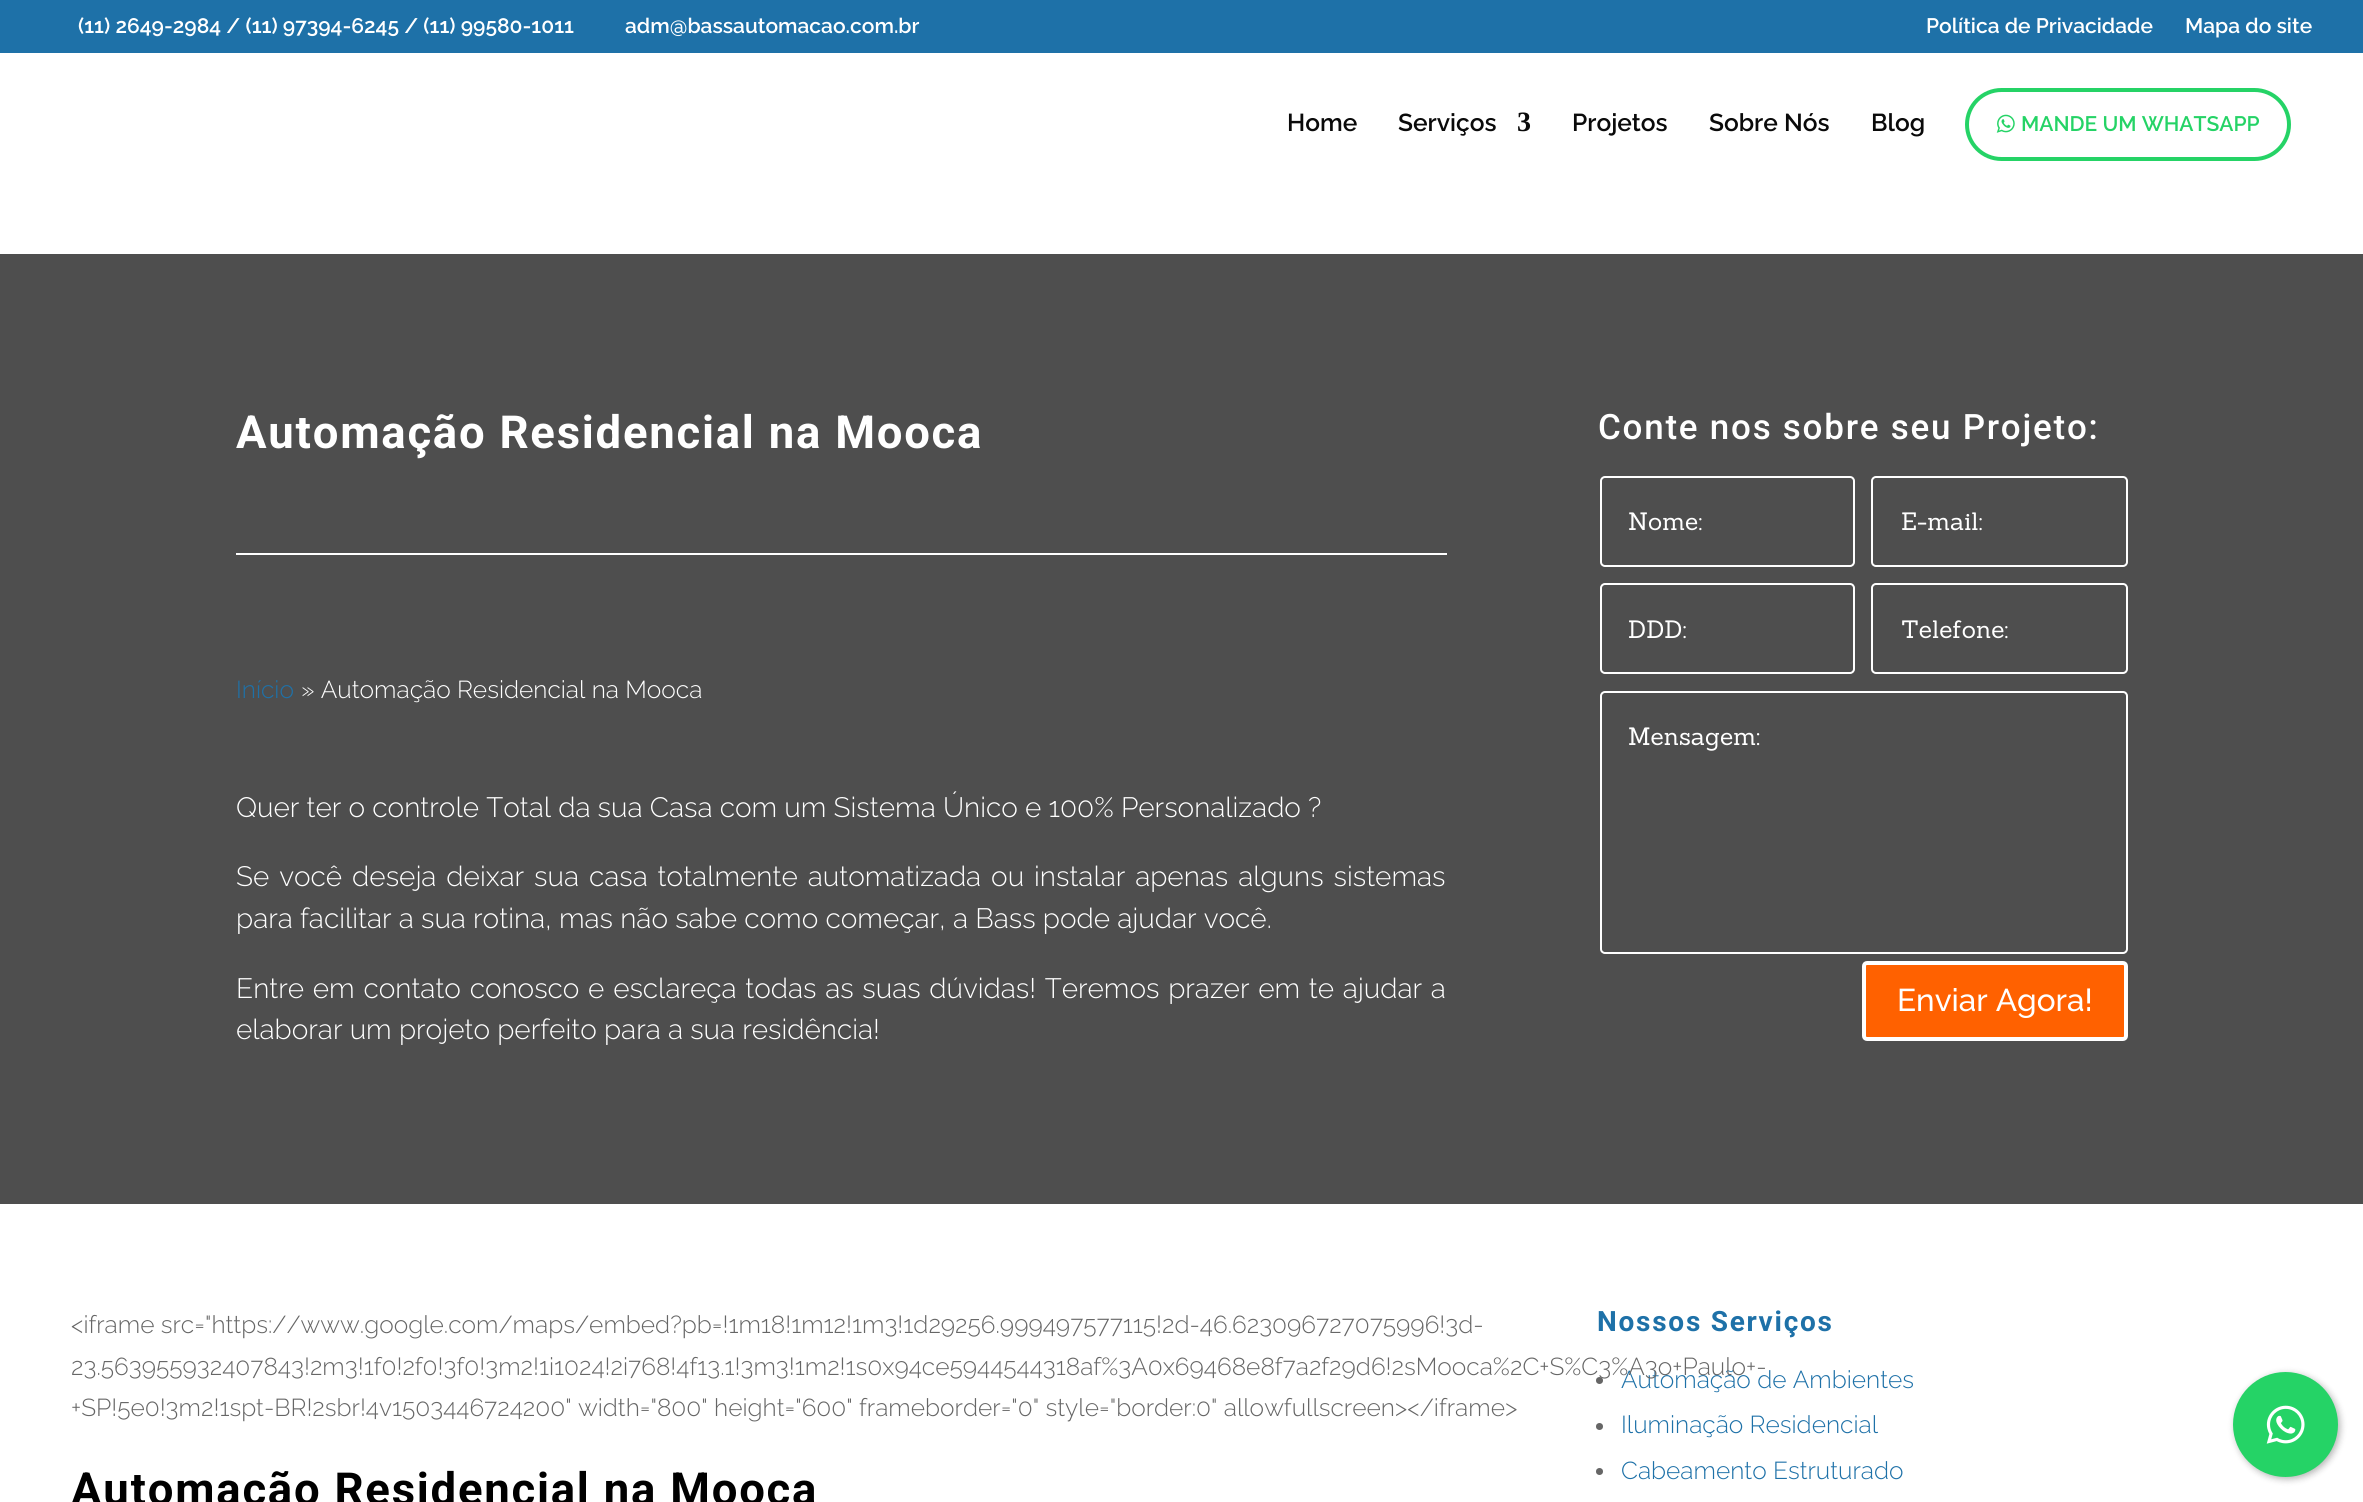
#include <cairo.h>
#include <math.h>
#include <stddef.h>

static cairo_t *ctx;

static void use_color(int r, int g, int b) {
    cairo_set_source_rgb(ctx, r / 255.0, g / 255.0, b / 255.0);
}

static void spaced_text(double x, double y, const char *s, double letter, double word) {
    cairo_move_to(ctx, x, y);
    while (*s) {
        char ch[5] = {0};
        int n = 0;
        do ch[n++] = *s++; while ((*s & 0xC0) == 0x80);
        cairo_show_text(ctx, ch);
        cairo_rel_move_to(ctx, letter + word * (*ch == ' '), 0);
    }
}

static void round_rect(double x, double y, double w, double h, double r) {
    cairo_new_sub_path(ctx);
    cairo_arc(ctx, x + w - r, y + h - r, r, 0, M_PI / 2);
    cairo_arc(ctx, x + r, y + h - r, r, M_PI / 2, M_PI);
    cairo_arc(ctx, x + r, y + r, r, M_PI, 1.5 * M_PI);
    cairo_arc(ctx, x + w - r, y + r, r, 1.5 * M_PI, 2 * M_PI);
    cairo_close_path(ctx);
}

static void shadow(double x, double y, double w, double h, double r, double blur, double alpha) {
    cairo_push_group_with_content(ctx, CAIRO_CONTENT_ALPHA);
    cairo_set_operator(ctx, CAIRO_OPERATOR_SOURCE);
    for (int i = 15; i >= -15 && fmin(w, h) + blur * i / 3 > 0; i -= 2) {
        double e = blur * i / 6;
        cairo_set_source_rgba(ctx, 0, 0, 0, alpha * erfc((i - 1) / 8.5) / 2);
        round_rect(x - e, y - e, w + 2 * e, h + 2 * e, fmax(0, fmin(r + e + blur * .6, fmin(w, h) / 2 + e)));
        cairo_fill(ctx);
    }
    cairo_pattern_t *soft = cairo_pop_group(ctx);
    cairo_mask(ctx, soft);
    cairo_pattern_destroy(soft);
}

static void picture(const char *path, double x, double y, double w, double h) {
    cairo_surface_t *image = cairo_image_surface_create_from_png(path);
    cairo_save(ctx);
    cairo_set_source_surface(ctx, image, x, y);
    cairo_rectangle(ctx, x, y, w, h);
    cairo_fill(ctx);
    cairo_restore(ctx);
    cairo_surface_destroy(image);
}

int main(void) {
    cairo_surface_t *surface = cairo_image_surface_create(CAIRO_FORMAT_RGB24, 2363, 1502);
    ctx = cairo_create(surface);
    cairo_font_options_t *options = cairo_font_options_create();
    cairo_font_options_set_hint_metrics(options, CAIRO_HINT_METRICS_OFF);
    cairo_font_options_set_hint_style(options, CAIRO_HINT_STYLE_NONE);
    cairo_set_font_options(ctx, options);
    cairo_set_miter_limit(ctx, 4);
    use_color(255, 255, 255);
    cairo_paint(ctx);
    use_color(30, 113, 168);
    cairo_rectangle(ctx, 0, 0, 2363, 53);
    cairo_fill(ctx);
    cairo_select_font_face(ctx, "Raleway SemiBold", CAIRO_FONT_SLANT_NORMAL, CAIRO_FONT_WEIGHT_NORMAL);
    cairo_set_font_size(ctx, 21);
    use_color(255, 255, 255);
    cairo_move_to(ctx, 78, 33);
    cairo_show_text(ctx, "(11) 2649-2984 / (11) 97394-6245 / (11) 99580-1011");
    cairo_move_to(ctx, 625, 33);
    cairo_show_text(ctx, "adm@bassautomacao.com.br");
    cairo_move_to(ctx, 1926, 33);
    cairo_show_text(ctx, "Política de Privacidade");
    cairo_move_to(ctx, 2185, 33);
    cairo_show_text(ctx, "Mapa do site");
    cairo_set_font_size(ctx, 24.5);
    use_color(10, 10, 10);
    cairo_move_to(ctx, 1287, 131);
    cairo_show_text(ctx, "Home");
    cairo_move_to(ctx, 1398, 131);
    cairo_show_text(ctx, "Serviços");
    cairo_select_font_face(ctx, "Liberation Serif", CAIRO_FONT_SLANT_NORMAL, CAIRO_FONT_WEIGHT_BOLD);
    cairo_set_font_size(ctx, 28);
    cairo_move_to(ctx, 1517, 131);
    cairo_show_text(ctx, "3");
    cairo_select_font_face(ctx, "Raleway SemiBold", CAIRO_FONT_SLANT_NORMAL, CAIRO_FONT_WEIGHT_NORMAL);
    cairo_set_font_size(ctx, 24.5);
    cairo_move_to(ctx, 1572, 131);
    cairo_show_text(ctx, "Projetos");
    cairo_move_to(ctx, 1709, 131);
    cairo_show_text(ctx, "Sobre Nós");
    cairo_move_to(ctx, 1871, 131);
    cairo_show_text(ctx, "Blog");
    round_rect(1967, 90, 322, 69, 34.5);
    use_color(37, 211, 102);
    cairo_set_line_width(ctx, 4);
    cairo_stroke(ctx);
    picture("img1.png", 1996, 114, 19, 19);
    cairo_set_font_size(ctx, 21);
    cairo_move_to(ctx, 2021, 131);
    cairo_show_text(ctx, "MANDE UM WHATSAPP");
    use_color(78, 78, 78);
    cairo_rectangle(ctx, 0, 254, 2363, 950);
    cairo_fill(ctx);
    cairo_select_font_face(ctx, "Roboto", CAIRO_FONT_SLANT_NORMAL, CAIRO_FONT_WEIGHT_BOLD);
    cairo_set_font_size(ctx, 45.5);
    use_color(255, 255, 255);
    spaced_text(236, 448, "Automação Residencial na Mooca", 1.75, 0);
    cairo_rectangle(ctx, 236, 553, 1211, 2);
    cairo_fill(ctx);
    cairo_select_font_face(ctx, "Raleway Light", CAIRO_FONT_SLANT_NORMAL, CAIRO_FONT_WEIGHT_NORMAL);
    cairo_set_font_size(ctx, 24.5);
    use_color(30, 113, 168);
    cairo_move_to(ctx, 236, 698);
    cairo_show_text(ctx, "Início");
    use_color(255, 255, 255);
    cairo_move_to(ctx, 301, 698);
    cairo_show_text(ctx, "» Automação Residencial na Mooca");
    cairo_set_font_size(ctx, 28);
    cairo_move_to(ctx, 236, 817);
    cairo_show_text(ctx, "Quer ter o controle Total da sua Casa com um Sistema Único e 100% Personalizado ?");
    spaced_text(236, 886, "Se você deseja deixar sua casa totalmente automatizada ou instalar apenas alguns sistemas", 0, 2.75);
    cairo_move_to(ctx, 236, 928);
    cairo_show_text(ctx, "para facilitar a sua rotina, mas não sabe como começar, a Bass pode ajudar você.");
    spaced_text(236, 998, "Entre em contato conosco e esclareça todas as suas dúvidas! Teremos prazer em te ajudar a", 0, 1.5);
    cairo_move_to(ctx, 236, 1039);
    cairo_show_text(ctx, "elaborar um projeto perfeito para a sua residência!");
    cairo_select_font_face(ctx, "Roboto Medium", CAIRO_FONT_SLANT_NORMAL, CAIRO_FONT_WEIGHT_NORMAL);
    cairo_set_font_size(ctx, 35);
    spaced_text(1598, 439, "Conte nos sobre seu Projeto:", 1.75, 0);
    round_rect(1601, 477, 253, 89, 4);
    cairo_set_line_width(ctx, 2);
    cairo_stroke(ctx);
    cairo_select_font_face(ctx, "Sanchez", CAIRO_FONT_SLANT_NORMAL, CAIRO_FONT_WEIGHT_NORMAL);
    cairo_set_font_size(ctx, 24.5);
    cairo_move_to(ctx, 1628, 530);
    cairo_show_text(ctx, "Nome:");
    round_rect(1872, 477, 255, 89, 4);
    cairo_stroke(ctx);
    cairo_move_to(ctx, 1901, 530);
    cairo_show_text(ctx, "E-mail:");
    round_rect(1601, 584, 253, 89, 4);
    cairo_stroke(ctx);
    cairo_move_to(ctx, 1628, 638);
    cairo_show_text(ctx, "DDD:");
    round_rect(1872, 584, 255, 89, 4);
    cairo_stroke(ctx);
    cairo_move_to(ctx, 1901, 638);
    cairo_show_text(ctx, "Telefone:");
    round_rect(1601, 692, 526, 261, 4);
    cairo_stroke(ctx);
    cairo_move_to(ctx, 1628, 745);
    cairo_show_text(ctx, "Mensagem:");
    use_color(255, 97, 0);
    round_rect(1864, 963, 262, 76, 3);
    cairo_fill_preserve(ctx);
    use_color(255, 255, 255);
    cairo_set_line_width(ctx, 4);
    cairo_stroke(ctx);
    cairo_select_font_face(ctx, "Raleway Medium", CAIRO_FONT_SLANT_NORMAL, CAIRO_FONT_WEIGHT_NORMAL);
    cairo_set_font_size(ctx, 31.5);
    cairo_move_to(ctx, 1897, 1011);
    cairo_show_text(ctx, "Enviar Agora!");
    cairo_select_font_face(ctx, "Roboto", CAIRO_FONT_SLANT_NORMAL, CAIRO_FONT_WEIGHT_BOLD);
    cairo_set_font_size(ctx, 28);
    use_color(30, 113, 168);
    spaced_text(1597, 1331, "Nossos Serviços", 1.75, 0);
    use_color(102, 102, 102);
    cairo_new_path(ctx);
    cairo_arc(ctx, 1599.5, 1380.5, 3.5, 0, 2 * M_PI);
    cairo_fill(ctx);
    cairo_select_font_face(ctx, "Raleway Light", CAIRO_FONT_SLANT_NORMAL, CAIRO_FONT_WEIGHT_NORMAL);
    cairo_set_font_size(ctx, 24.5);
    use_color(30, 113, 168);
    cairo_move_to(ctx, 1621, 1388);
    cairo_show_text(ctx, "Automação de Ambientes");
    use_color(102, 102, 102);
    cairo_new_path(ctx);
    cairo_arc(ctx, 1599.5, 1426.5, 3.5, 0, 2 * M_PI);
    cairo_fill(ctx);
    use_color(30, 113, 168);
    cairo_move_to(ctx, 1621, 1433);
    cairo_show_text(ctx, "Iluminação Residencial");
    use_color(102, 102, 102);
    cairo_new_path(ctx);
    cairo_arc(ctx, 1599.5, 1471.5, 3.5, 0, 2 * M_PI);
    cairo_fill(ctx);
    use_color(30, 113, 168);
    cairo_move_to(ctx, 1621, 1479);
    cairo_show_text(ctx, "Cabeamento Estruturado");
    use_color(102, 102, 102);
    cairo_move_to(ctx, 71, 1333);
    cairo_show_text(ctx, "<iframe src=\"https://www.google.com/maps/embed?pb=!1m18!1m12!1m3!1d29256.999497577115!2d-46.623096727075996!3d-");
    cairo_move_to(ctx, 71, 1375);
    cairo_show_text(ctx, "23.563955932407843!2m3!1f0!2f0!3f0!3m2!1i1024!2i768!4f13.1!3m3!1m2!1s0x94ce5944544318af%3A0x69468e8f7a2f29d6!2sMooca%2C+S%C3%A3o+Paulo+-");
    cairo_move_to(ctx, 71, 1416);
    cairo_show_text(ctx, "+SP!5e0!3m2!1spt-BR!2sbr!4v1503446724200\" width=\"800\" height=\"600\" frameborder=\"0\" style=\"border:0\" allowfullscreen></iframe>");
    cairo_select_font_face(ctx, "Roboto", CAIRO_FONT_SLANT_NORMAL, CAIRO_FONT_WEIGHT_BOLD);
    cairo_set_font_size(ctx, 45.5);
    use_color(0, 0, 0);
    spaced_text(71, 1505, "Automação Residencial na Mooca", 1.75, 0);
    use_color(0, 0, 0);
    shadow(2235, 1374, 105, 105, 52.5, 3.5, 0.3);
    use_color(37, 211, 102);
    cairo_arc(ctx, 2285.5, 1424.5, 52.5, 0, 2 * M_PI);
    cairo_fill(ctx);
    picture("img2.png", 2266, 1405, 39, 39);
    cairo_surface_write_to_png(surface, "result.png");
    cairo_font_options_destroy(options);
    cairo_destroy(ctx);
    cairo_surface_destroy(surface);
    return 0;
}
